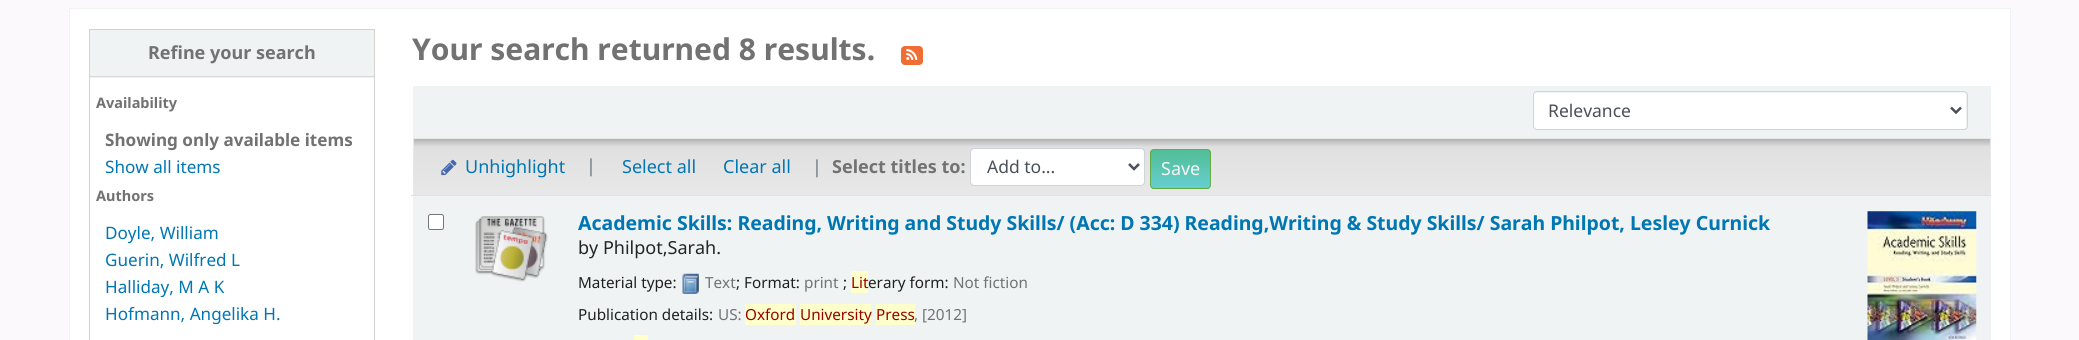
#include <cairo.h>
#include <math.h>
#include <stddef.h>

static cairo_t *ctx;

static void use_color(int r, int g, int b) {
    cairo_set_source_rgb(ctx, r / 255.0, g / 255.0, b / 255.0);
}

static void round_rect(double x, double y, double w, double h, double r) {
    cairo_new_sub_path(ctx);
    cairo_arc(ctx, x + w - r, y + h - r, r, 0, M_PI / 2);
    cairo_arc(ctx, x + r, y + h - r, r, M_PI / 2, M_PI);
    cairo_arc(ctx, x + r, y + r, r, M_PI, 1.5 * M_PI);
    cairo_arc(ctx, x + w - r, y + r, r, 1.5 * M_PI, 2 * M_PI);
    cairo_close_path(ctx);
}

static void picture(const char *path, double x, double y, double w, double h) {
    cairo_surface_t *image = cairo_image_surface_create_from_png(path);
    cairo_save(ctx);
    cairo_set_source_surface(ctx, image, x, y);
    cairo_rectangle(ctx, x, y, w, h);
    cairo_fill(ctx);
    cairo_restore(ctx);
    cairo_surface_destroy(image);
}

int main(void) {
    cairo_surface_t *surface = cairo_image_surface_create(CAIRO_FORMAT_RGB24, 2079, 340);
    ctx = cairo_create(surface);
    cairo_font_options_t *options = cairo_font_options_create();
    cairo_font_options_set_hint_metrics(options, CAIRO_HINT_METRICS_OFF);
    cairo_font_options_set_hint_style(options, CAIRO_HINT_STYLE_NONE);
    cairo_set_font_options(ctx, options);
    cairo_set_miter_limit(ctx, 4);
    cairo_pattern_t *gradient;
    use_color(252, 249, 252);
    cairo_paint(ctx);
    use_color(255, 255, 255);
    cairo_rectangle(ctx, 69.5, 8.5, 1941, 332);
    cairo_fill_preserve(ctx);
    use_color(240, 243, 243);
    cairo_set_line_width(ctx, 1);
    cairo_stroke(ctx);
    cairo_rectangle(ctx, 89.5, 29.5, 285, 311);
    use_color(210, 210, 207);
    cairo_stroke(ctx);
    use_color(240, 243, 243);
    cairo_rectangle(ctx, 90, 30, 284, 48);
    cairo_fill(ctx);
    use_color(216, 216, 216);
    cairo_rectangle(ctx, 90, 76, 284, 1);
    cairo_fill(ctx);
    cairo_select_font_face(ctx, "Noto Sans", CAIRO_FONT_SLANT_NORMAL, CAIRO_FONT_WEIGHT_BOLD);
    cairo_set_font_size(ctx, 18);
    use_color(114, 114, 114);
    cairo_move_to(ctx, 148, 59);
    cairo_show_text(ctx, "Refine your search");
    cairo_set_font_size(ctx, 14.5);
    cairo_move_to(ctx, 96, 108);
    cairo_show_text(ctx, "Availability");
    cairo_set_font_size(ctx, 17.1);
    cairo_move_to(ctx, 105, 146);
    cairo_show_text(ctx, "Showing only available items");
    cairo_select_font_face(ctx, "Noto Sans", CAIRO_FONT_SLANT_NORMAL, CAIRO_FONT_WEIGHT_NORMAL);
    use_color(0, 118, 178);
    cairo_move_to(ctx, 105, 173);
    cairo_show_text(ctx, "Show all items");
    cairo_select_font_face(ctx, "Noto Sans", CAIRO_FONT_SLANT_NORMAL, CAIRO_FONT_WEIGHT_BOLD);
    cairo_set_font_size(ctx, 14.5);
    use_color(114, 114, 114);
    cairo_move_to(ctx, 96, 201);
    cairo_show_text(ctx, "Authors");
    cairo_select_font_face(ctx, "Noto Sans", CAIRO_FONT_SLANT_NORMAL, CAIRO_FONT_WEIGHT_NORMAL);
    cairo_set_font_size(ctx, 17.1);
    use_color(0, 118, 178);
    cairo_move_to(ctx, 105, 239);
    cairo_show_text(ctx, "Doyle, William");
    cairo_move_to(ctx, 105, 266);
    cairo_show_text(ctx, "Guerin, Wilfred L");
    cairo_move_to(ctx, 105, 293);
    cairo_show_text(ctx, "Halliday, M A K");
    cairo_move_to(ctx, 105, 320);
    cairo_show_text(ctx, "Hofmann, Angelika H.");
    cairo_select_font_face(ctx, "Noto Sans", CAIRO_FONT_SLANT_NORMAL, CAIRO_FONT_WEIGHT_BOLD);
    cairo_set_font_size(ctx, 30);
    use_color(114, 114, 114);
    cairo_move_to(ctx, 412, 60);
    cairo_show_text(ctx, "Your search returned 8 results.");
    use_color(240, 109, 52);
    round_rect(901, 46, 22, 19, 4);
    cairo_fill(ctx);
    picture("img1.png", 906, 49, 12, 11);
    use_color(240, 243, 243);
    cairo_rectangle(ctx, 413, 86, 1578, 52);
    cairo_fill(ctx);
    use_color(255, 255, 255);
    round_rect(1534, 93, 432, 36, 2.5);
    cairo_fill(ctx);
    round_rect(1533.5, 91.5, 434, 38, 3.5);
    use_color(206, 212, 218);
    cairo_stroke(ctx);
    cairo_new_path(ctx);
    cairo_move_to(ctx, 1951, 107.5);
    cairo_line_to(ctx, 1956, 112.5);
    cairo_line_to(ctx, 1961, 107.5);
    use_color(73, 80, 87);
    cairo_set_line_width(ctx, 2.5);
    cairo_stroke(ctx);
    cairo_select_font_face(ctx, "Noto Sans", CAIRO_FONT_SLANT_NORMAL, CAIRO_FONT_WEIGHT_NORMAL);
    cairo_set_font_size(ctx, 17.5);
    cairo_move_to(ctx, 1548, 117);
    cairo_show_text(ctx, "Relevance");
    gradient = cairo_pattern_create_linear(1202, 82, 1202, 139);
    cairo_pattern_add_color_stop_rgba(gradient, 0, 0.698, 0.698, 0.698, 1);
    cairo_pattern_add_color_stop_rgba(gradient, 0.14, 0.878, 0.878, 0.878, 1);
    cairo_pattern_add_color_stop_rgba(gradient, 1, 0.91, 0.91, 0.91, 1);
    cairo_set_source(ctx, gradient);
    cairo_pattern_destroy(gradient);
    cairo_rectangle(ctx, 413, 138, 1578, 1);
    cairo_fill(ctx);
    gradient = cairo_pattern_create_linear(1202, 139, 1202, 195);
    cairo_pattern_add_color_stop_rgba(gradient, 0, 0.698, 0.698, 0.698, 1);
    cairo_pattern_add_color_stop_rgba(gradient, 0.14, 0.878, 0.878, 0.878, 1);
    cairo_pattern_add_color_stop_rgba(gradient, 1, 0.91, 0.91, 0.91, 1);
    cairo_set_source(ctx, gradient);
    cairo_pattern_destroy(gradient);
    cairo_rectangle(ctx, 414, 139, 1576, 56);
    cairo_fill(ctx);
    use_color(232, 232, 232);
    cairo_rectangle(ctx, 1990, 138, 1, 57);
    cairo_fill(ctx);
    cairo_rectangle(ctx, 413, 138, 1, 57);
    cairo_fill(ctx);
    picture("img2.png", 441, 159, 16, 17);
    cairo_set_font_size(ctx, 18);
    use_color(0, 118, 178);
    cairo_move_to(ctx, 465, 173);
    cairo_show_text(ctx, "Unhighlight");
    use_color(108, 117, 125);
    cairo_move_to(ctx, 586, 172);
    cairo_show_text(ctx, "|");
    use_color(0, 118, 178);
    cairo_move_to(ctx, 622, 173);
    cairo_show_text(ctx, "Select all");
    cairo_move_to(ctx, 723, 173);
    cairo_show_text(ctx, "Clear all");
    use_color(108, 117, 125);
    cairo_move_to(ctx, 812, 173);
    cairo_show_text(ctx, "|");
    cairo_select_font_face(ctx, "Noto Sans", CAIRO_FONT_SLANT_NORMAL, CAIRO_FONT_WEIGHT_BOLD);
    use_color(114, 114, 114);
    cairo_move_to(ctx, 832, 173);
    cairo_show_text(ctx, "Select titles to:");
    use_color(255, 255, 255);
    round_rect(971, 149, 173, 36, 2.5);
    cairo_fill(ctx);
    round_rect(970.5, 148.5, 174, 37, 3.5);
    use_color(206, 212, 218);
    cairo_set_line_width(ctx, 1);
    cairo_stroke(ctx);
    cairo_new_path(ctx);
    cairo_move_to(ctx, 1129, 164);
    cairo_line_to(ctx, 1134, 169);
    cairo_line_to(ctx, 1139, 164);
    use_color(73, 80, 87);
    cairo_set_line_width(ctx, 2.5);
    cairo_stroke(ctx);
    cairo_select_font_face(ctx, "Noto Sans", CAIRO_FONT_SLANT_NORMAL, CAIRO_FONT_WEIGHT_NORMAL);
    cairo_set_font_size(ctx, 17.5);
    cairo_move_to(ctx, 987, 173);
    cairo_show_text(ctx, "Add to...");
    cairo_save(ctx);
    round_rect(1150, 149, 61, 40, 4);
    cairo_clip(ctx);
    gradient = cairo_pattern_create_linear(1181, 150, 1181, 113);
    cairo_pattern_add_color_stop_rgba(gradient, 0, 0.396, 0.8, 0.804, 1);
    cairo_pattern_add_color_stop_rgba(gradient, 1, 0.318, 0.741, 0.584, 1);
    cairo_set_source(ctx, gradient);
    cairo_pattern_destroy(gradient);
    cairo_rectangle(ctx, 1150, 149, 61, 1);
    cairo_fill(ctx);
    gradient = cairo_pattern_create_linear(1181, 188, 1181, 150);
    cairo_pattern_add_color_stop_rgba(gradient, 0, 0.133, 0.757, 0.765, 0.65);
    cairo_pattern_add_color_stop_rgba(gradient, 1, 0.016, 0.667, 0.427, 0.65);
    cairo_set_source(ctx, gradient);
    cairo_pattern_destroy(gradient);
    cairo_rectangle(ctx, 1150, 150, 61, 38);
    cairo_fill(ctx);
    gradient = cairo_pattern_create_linear(1181, 225, 1181, 188);
    cairo_pattern_add_color_stop_rgba(gradient, 0, 0.404, 0.808, 0.816, 1);
    cairo_pattern_add_color_stop_rgba(gradient, 1, 0.325, 0.749, 0.596, 1);
    cairo_set_source(ctx, gradient);
    cairo_pattern_destroy(gradient);
    cairo_rectangle(ctx, 1150, 188, 61, 1);
    cairo_fill(ctx);
    cairo_restore(ctx);
    round_rect(1150.5, 149.5, 60, 39, 3.5);
    cairo_set_source_rgba(ctx, 0.408, 0.616, 0.051, 0.65);
    cairo_set_line_width(ctx, 1);
    cairo_stroke(ctx);
    cairo_set_font_size(ctx, 18);
    use_color(245, 245, 245);
    cairo_move_to(ctx, 1161, 175);
    cairo_show_text(ctx, "Save");
    use_color(240, 243, 243);
    cairo_rectangle(ctx, 413, 196, 1578, 144);
    cairo_fill(ctx);
    use_color(255, 255, 255);
    round_rect(428.5, 214.5, 15, 15, 2);
    cairo_fill_preserve(ctx);
    use_color(118, 118, 118);
    cairo_stroke(ctx);
    picture("img3.png", 475, 216, 73, 66);
    use_color(222, 226, 230);
    cairo_rectangle(ctx, 411, 195, 1580, 1);
    cairo_fill(ctx);
    cairo_select_font_face(ctx, "Noto Sans", CAIRO_FONT_SLANT_NORMAL, CAIRO_FONT_WEIGHT_BOLD);
    cairo_set_font_size(ctx, 19.45);
    use_color(0, 118, 178);
    cairo_move_to(ctx, 578, 230);
    cairo_show_text(ctx, "Academic Skills: Reading, Writing and Study Skills/ (Acc: D 334) Reading,Writing & Study Skills/ Sarah Philpot, Lesley Curnick");
    cairo_select_font_face(ctx, "Noto Sans", CAIRO_FONT_SLANT_NORMAL, CAIRO_FONT_WEIGHT_NORMAL);
    cairo_set_font_size(ctx, 18);
    use_color(33, 37, 41);
    cairo_move_to(ctx, 578, 254);
    cairo_show_text(ctx, "by Philpot,Sarah.");
    cairo_set_font_size(ctx, 15.25);
    use_color(32, 32, 32);
    cairo_move_to(ctx, 578, 288);
    cairo_show_text(ctx, "Material type:");
    picture("img4.png", 682, 273, 17, 21);
    use_color(114, 114, 114);
    cairo_move_to(ctx, 705, 288);
    cairo_show_text(ctx, "Text");
    use_color(32, 32, 32);
    cairo_move_to(ctx, 736, 288);
    cairo_show_text(ctx, "; Format:");
    use_color(114, 114, 114);
    cairo_move_to(ctx, 804, 288);
    cairo_show_text(ctx, "print");
    use_color(32, 32, 32);
    cairo_move_to(ctx, 843, 288);
    cairo_show_text(ctx, ";");
    use_color(255, 255, 204);
    cairo_rectangle(ctx, 851, 271, 17, 22);
    cairo_fill(ctx);
    use_color(153, 0, 0);
    cairo_move_to(ctx, 851, 288);
    cairo_show_text(ctx, "Lit");
    use_color(32, 32, 32);
    cairo_move_to(ctx, 868, 288);
    cairo_show_text(ctx, "erary form:");
    use_color(114, 114, 114);
    cairo_move_to(ctx, 953, 288);
    cairo_show_text(ctx, "Not fiction");
    use_color(32, 32, 32);
    cairo_move_to(ctx, 578, 320);
    cairo_show_text(ctx, "Publication details:");
    use_color(114, 114, 114);
    cairo_move_to(ctx, 718, 320);
    cairo_show_text(ctx, "US:");
    use_color(255, 255, 204);
    cairo_rectangle(ctx, 745, 304, 51, 21);
    cairo_fill(ctx);
    use_color(153, 0, 0);
    cairo_move_to(ctx, 745, 320);
    cairo_show_text(ctx, "Oxford");
    use_color(255, 255, 204);
    cairo_rectangle(ctx, 800, 304, 71, 21);
    cairo_fill(ctx);
    use_color(153, 0, 0);
    cairo_move_to(ctx, 800, 320);
    cairo_show_text(ctx, "University");
    use_color(255, 255, 204);
    cairo_rectangle(ctx, 876, 304, 39, 21);
    cairo_fill(ctx);
    use_color(153, 0, 0);
    cairo_move_to(ctx, 876, 320);
    cairo_show_text(ctx, "Press");
    use_color(114, 114, 114);
    cairo_move_to(ctx, 914, 320);
    cairo_show_text(ctx, ", [2012]");
    use_color(255, 255, 204);
    cairo_rectangle(ctx, 634, 335, 14, 5);
    cairo_fill(ctx);
    picture("img5.png", 1867, 211, 110, 129);
    cairo_surface_write_to_png(surface, "result.png");
    cairo_font_options_destroy(options);
    cairo_destroy(ctx);
    cairo_surface_destroy(surface);
    return 0;
}
